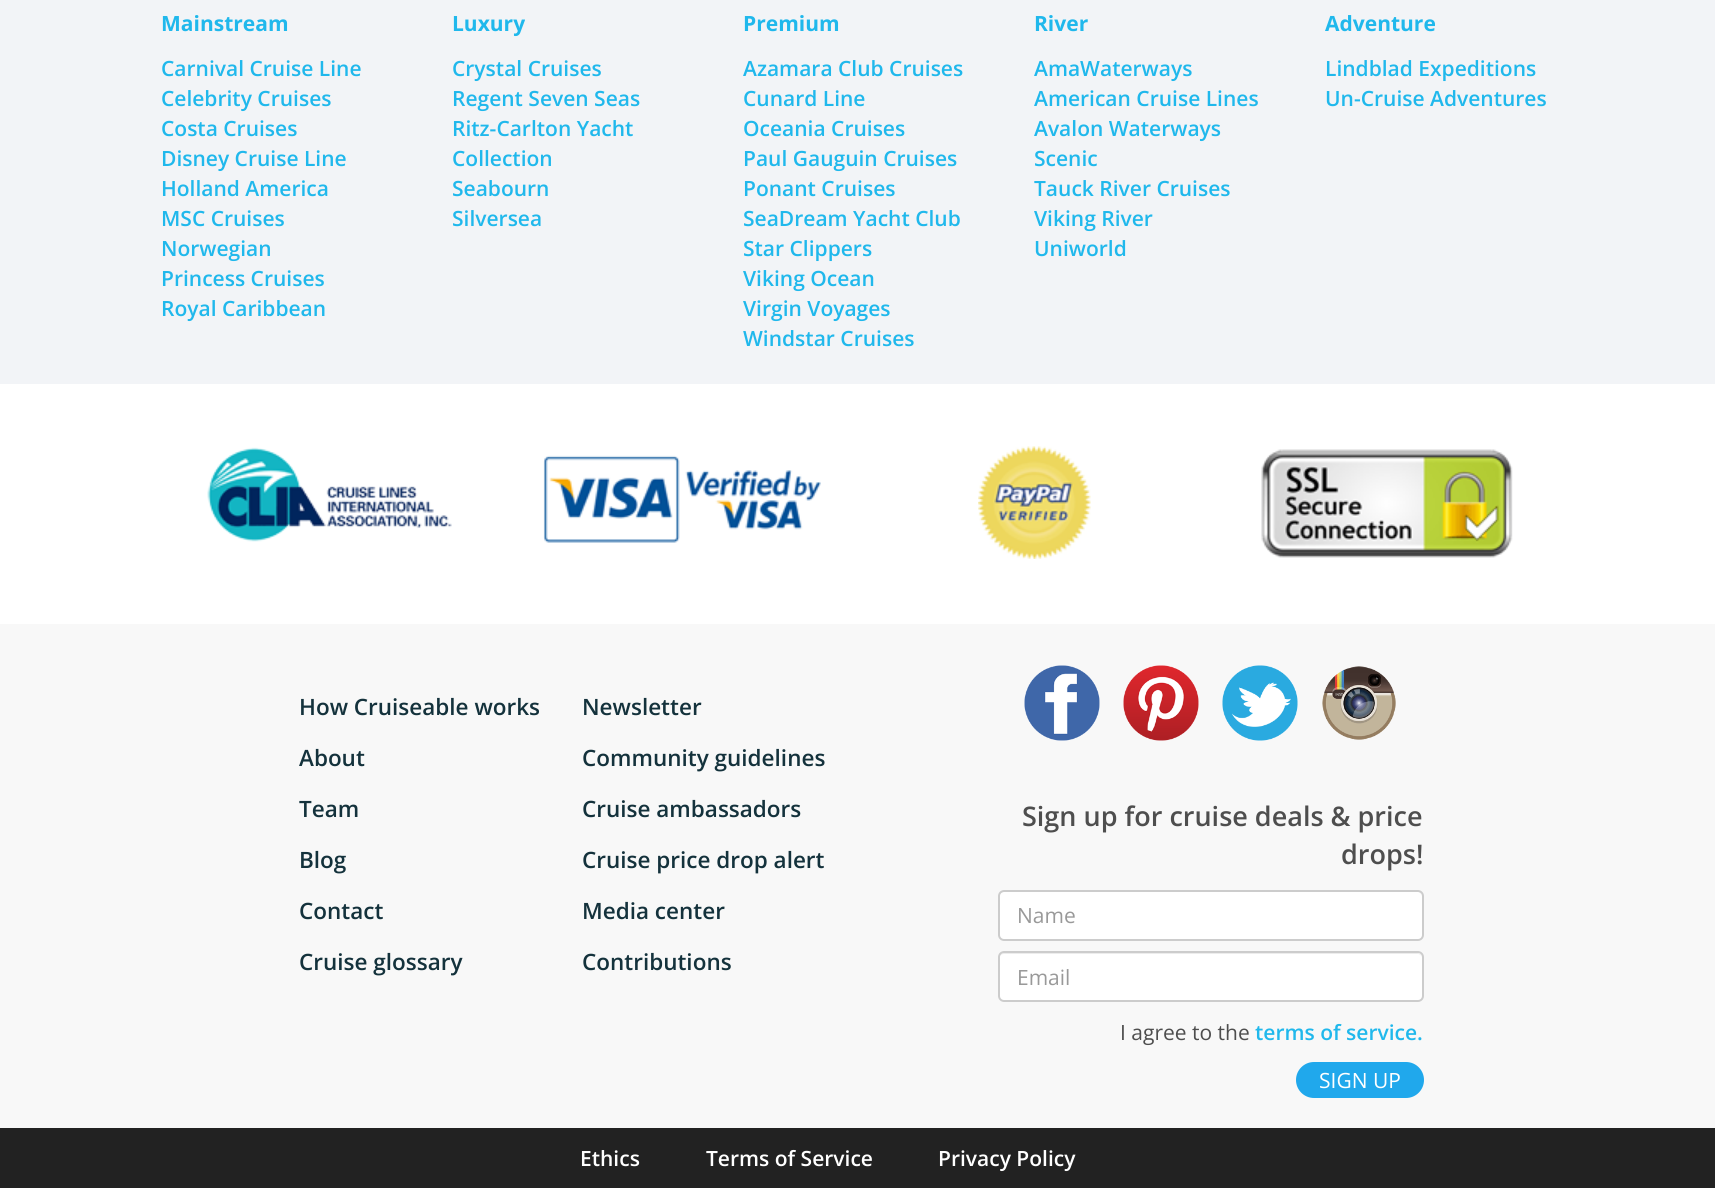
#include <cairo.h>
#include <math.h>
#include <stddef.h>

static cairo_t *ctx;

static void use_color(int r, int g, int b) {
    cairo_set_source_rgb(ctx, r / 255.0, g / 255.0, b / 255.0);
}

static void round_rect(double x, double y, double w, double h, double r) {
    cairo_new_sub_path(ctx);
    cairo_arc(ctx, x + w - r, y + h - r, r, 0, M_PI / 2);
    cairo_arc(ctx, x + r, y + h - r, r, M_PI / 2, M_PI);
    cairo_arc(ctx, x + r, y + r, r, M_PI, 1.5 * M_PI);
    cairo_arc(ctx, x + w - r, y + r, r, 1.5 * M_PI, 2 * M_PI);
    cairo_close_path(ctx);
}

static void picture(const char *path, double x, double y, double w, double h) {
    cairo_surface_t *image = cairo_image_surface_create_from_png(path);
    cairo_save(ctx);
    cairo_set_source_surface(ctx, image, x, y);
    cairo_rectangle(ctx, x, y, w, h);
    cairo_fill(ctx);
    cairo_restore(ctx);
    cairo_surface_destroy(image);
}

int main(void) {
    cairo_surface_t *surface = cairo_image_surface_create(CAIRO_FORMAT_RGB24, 1715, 1188);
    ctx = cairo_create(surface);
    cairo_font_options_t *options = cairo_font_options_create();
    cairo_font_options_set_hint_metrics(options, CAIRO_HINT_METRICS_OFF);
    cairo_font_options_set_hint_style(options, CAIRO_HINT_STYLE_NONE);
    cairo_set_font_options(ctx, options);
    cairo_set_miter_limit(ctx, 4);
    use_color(255, 255, 255);
    cairo_paint(ctx);
    use_color(242, 244, 247);
    cairo_rectangle(ctx, 0, 0, 1715, 384);
    cairo_fill(ctx);
    cairo_select_font_face(ctx, "Open Sans", CAIRO_FONT_SLANT_NORMAL, CAIRO_FONT_WEIGHT_BOLD);
    cairo_set_font_size(ctx, 21);
    use_color(32, 184, 236);
    cairo_move_to(ctx, 161, 31);
    cairo_show_text(ctx, "Mainstream");
    cairo_select_font_face(ctx, "Open Sans SemiBold", CAIRO_FONT_SLANT_NORMAL, CAIRO_FONT_WEIGHT_NORMAL);
    cairo_move_to(ctx, 161, 76);
    cairo_show_text(ctx, "Carnival Cruise Line");
    cairo_move_to(ctx, 161, 106);
    cairo_show_text(ctx, "Celebrity Cruises");
    cairo_move_to(ctx, 161, 136);
    cairo_show_text(ctx, "Costa Cruises");
    cairo_move_to(ctx, 161, 166);
    cairo_show_text(ctx, "Disney Cruise Line");
    cairo_move_to(ctx, 161, 196);
    cairo_show_text(ctx, "Holland America");
    cairo_move_to(ctx, 161, 226);
    cairo_show_text(ctx, "MSC Cruises");
    cairo_move_to(ctx, 161, 256);
    cairo_show_text(ctx, "Norwegian");
    cairo_move_to(ctx, 161, 286);
    cairo_show_text(ctx, "Princess Cruises");
    cairo_move_to(ctx, 161, 316);
    cairo_show_text(ctx, "Royal Caribbean");
    cairo_select_font_face(ctx, "Open Sans", CAIRO_FONT_SLANT_NORMAL, CAIRO_FONT_WEIGHT_BOLD);
    cairo_move_to(ctx, 452, 31);
    cairo_show_text(ctx, "Luxury");
    cairo_select_font_face(ctx, "Open Sans SemiBold", CAIRO_FONT_SLANT_NORMAL, CAIRO_FONT_WEIGHT_NORMAL);
    cairo_move_to(ctx, 452, 76);
    cairo_show_text(ctx, "Crystal Cruises");
    cairo_move_to(ctx, 452, 106);
    cairo_show_text(ctx, "Regent Seven Seas");
    cairo_move_to(ctx, 452, 136);
    cairo_show_text(ctx, "Ritz-Carlton Yacht");
    cairo_move_to(ctx, 452, 166);
    cairo_show_text(ctx, "Collection");
    cairo_move_to(ctx, 452, 196);
    cairo_show_text(ctx, "Seabourn");
    cairo_move_to(ctx, 452, 226);
    cairo_show_text(ctx, "Silversea");
    cairo_select_font_face(ctx, "Open Sans", CAIRO_FONT_SLANT_NORMAL, CAIRO_FONT_WEIGHT_BOLD);
    cairo_move_to(ctx, 743, 31);
    cairo_show_text(ctx, "Premium");
    cairo_select_font_face(ctx, "Open Sans SemiBold", CAIRO_FONT_SLANT_NORMAL, CAIRO_FONT_WEIGHT_NORMAL);
    cairo_move_to(ctx, 743, 76);
    cairo_show_text(ctx, "Azamara Club Cruises");
    cairo_move_to(ctx, 743, 106);
    cairo_show_text(ctx, "Cunard Line");
    cairo_move_to(ctx, 743, 136);
    cairo_show_text(ctx, "Oceania Cruises");
    cairo_move_to(ctx, 743, 166);
    cairo_show_text(ctx, "Paul Gauguin Cruises");
    cairo_move_to(ctx, 743, 196);
    cairo_show_text(ctx, "Ponant Cruises");
    cairo_move_to(ctx, 743, 226);
    cairo_show_text(ctx, "SeaDream Yacht Club");
    cairo_move_to(ctx, 743, 256);
    cairo_show_text(ctx, "Star Clippers");
    cairo_move_to(ctx, 743, 286);
    cairo_show_text(ctx, "Viking Ocean");
    cairo_move_to(ctx, 743, 316);
    cairo_show_text(ctx, "Virgin Voyages");
    cairo_move_to(ctx, 743, 346);
    cairo_show_text(ctx, "Windstar Cruises");
    cairo_select_font_face(ctx, "Open Sans", CAIRO_FONT_SLANT_NORMAL, CAIRO_FONT_WEIGHT_BOLD);
    cairo_move_to(ctx, 1034, 31);
    cairo_show_text(ctx, "River");
    cairo_select_font_face(ctx, "Open Sans SemiBold", CAIRO_FONT_SLANT_NORMAL, CAIRO_FONT_WEIGHT_NORMAL);
    cairo_move_to(ctx, 1034, 76);
    cairo_show_text(ctx, "AmaWaterways");
    cairo_move_to(ctx, 1034, 106);
    cairo_show_text(ctx, "American Cruise Lines");
    cairo_move_to(ctx, 1034, 136);
    cairo_show_text(ctx, "Avalon Waterways");
    cairo_move_to(ctx, 1034, 166);
    cairo_show_text(ctx, "Scenic");
    cairo_move_to(ctx, 1034, 196);
    cairo_show_text(ctx, "Tauck River Cruises");
    cairo_move_to(ctx, 1034, 226);
    cairo_show_text(ctx, "Viking River");
    cairo_move_to(ctx, 1034, 256);
    cairo_show_text(ctx, "Uniworld");
    cairo_select_font_face(ctx, "Open Sans", CAIRO_FONT_SLANT_NORMAL, CAIRO_FONT_WEIGHT_BOLD);
    cairo_move_to(ctx, 1325, 31);
    cairo_show_text(ctx, "Adventure");
    cairo_select_font_face(ctx, "Open Sans SemiBold", CAIRO_FONT_SLANT_NORMAL, CAIRO_FONT_WEIGHT_NORMAL);
    cairo_move_to(ctx, 1325, 76);
    cairo_show_text(ctx, "Lindblad Expeditions");
    cairo_move_to(ctx, 1325, 106);
    cairo_show_text(ctx, "Un-Cruise Adventures");
    picture("img1.png", 207, 447, 245, 95);
    picture("img2.png", 543, 455, 278, 88);
    picture("img3.png", 978, 446, 113, 113);
    picture("img4.png", 1261, 449, 252, 109);
    use_color(248, 248, 248);
    cairo_rectangle(ctx, 0, 624, 1715, 504);
    cairo_fill(ctx);
    cairo_set_font_size(ctx, 22.5);
    use_color(20, 50, 60);
    cairo_move_to(ctx, 299, 715);
    cairo_show_text(ctx, "How Cruiseable works");
    cairo_move_to(ctx, 299, 766);
    cairo_show_text(ctx, "About");
    cairo_move_to(ctx, 299, 817);
    cairo_show_text(ctx, "Team");
    cairo_move_to(ctx, 299, 868);
    cairo_show_text(ctx, "Blog");
    cairo_move_to(ctx, 299, 919);
    cairo_show_text(ctx, "Contact");
    cairo_move_to(ctx, 299, 970);
    cairo_show_text(ctx, "Cruise glossary");
    cairo_move_to(ctx, 582, 715);
    cairo_show_text(ctx, "Newsletter");
    cairo_move_to(ctx, 582, 766);
    cairo_show_text(ctx, "Community guidelines");
    cairo_move_to(ctx, 582, 817);
    cairo_show_text(ctx, "Cruise ambassadors");
    cairo_move_to(ctx, 582, 868);
    cairo_show_text(ctx, "Cruise price drop alert");
    cairo_move_to(ctx, 582, 919);
    cairo_show_text(ctx, "Media center");
    cairo_move_to(ctx, 582, 970);
    cairo_show_text(ctx, "Contributions");
    picture("img5.png", 1024, 665, 76, 76);
    picture("img6.png", 1123, 665, 76, 76);
    picture("img7.png", 1222, 665, 76, 76);
    picture("img8.png", 1322, 666, 74, 74);
    cairo_set_font_size(ctx, 27);
    use_color(78, 78, 78);
    cairo_move_to(ctx, 1022, 826);
    cairo_show_text(ctx, "Sign up for cruise deals & price");
    cairo_move_to(ctx, 1341, 864);
    cairo_show_text(ctx, "drops!");
    use_color(255, 255, 255);
    round_rect(998, 890, 426, 51, 6);
    cairo_fill(ctx);
    use_color(236, 236, 236);
    cairo_new_path(ctx);
    cairo_move_to(ctx, 1004, 892);
    cairo_line_to(ctx, 1418, 892);
    cairo_curve_to(ctx, 1420, 892, 1422, 895, 1422, 897);
    cairo_curve_to(ctx, 1422, 894, 1420, 891, 1417, 891);
    cairo_line_to(ctx, 1004, 891);
    cairo_curve_to(ctx, 1001, 891, 999, 894, 999, 897);
    cairo_curve_to(ctx, 999, 895, 1001, 892, 1004, 892);
    cairo_close_path(ctx);
    cairo_fill(ctx);
    round_rect(999, 891, 424, 49, 5);
    use_color(204, 204, 204);
    cairo_stroke(ctx);
    cairo_select_font_face(ctx, "Open Sans", CAIRO_FONT_SLANT_NORMAL, CAIRO_FONT_WEIGHT_NORMAL);
    cairo_set_font_size(ctx, 21);
    use_color(153, 153, 153);
    cairo_move_to(ctx, 1017, 923);
    cairo_show_text(ctx, "Name");
    use_color(255, 255, 255);
    round_rect(998, 951, 426, 51, 6);
    cairo_fill(ctx);
    use_color(236, 236, 236);
    cairo_new_path(ctx);
    cairo_move_to(ctx, 1004, 954);
    cairo_line_to(ctx, 1418, 954);
    cairo_curve_to(ctx, 1420, 954, 1422, 956, 1422, 958);
    cairo_curve_to(ctx, 1422, 955, 1420, 953, 1417, 953);
    cairo_line_to(ctx, 1004, 953);
    cairo_curve_to(ctx, 1001, 953, 999, 955, 999, 958);
    cairo_curve_to(ctx, 999, 956, 1001, 954, 1004, 954);
    cairo_close_path(ctx);
    cairo_fill(ctx);
    round_rect(999, 952, 424, 49, 5);
    use_color(204, 204, 204);
    cairo_stroke(ctx);
    use_color(153, 153, 153);
    cairo_move_to(ctx, 1017, 985);
    cairo_show_text(ctx, "Email");
    use_color(78, 78, 78);
    cairo_move_to(ctx, 1120, 1040);
    cairo_show_text(ctx, "I agree to the");
    cairo_select_font_face(ctx, "Open Sans SemiBold", CAIRO_FONT_SLANT_NORMAL, CAIRO_FONT_WEIGHT_NORMAL);
    use_color(32, 184, 236);
    cairo_move_to(ctx, 1255, 1040);
    cairo_show_text(ctx, "terms of service.");
    use_color(32, 168, 236);
    round_rect(1297, 1063, 126, 34, 17);
    cairo_fill_preserve(ctx);
    cairo_stroke(ctx);
    cairo_select_font_face(ctx, "Open Sans", CAIRO_FONT_SLANT_NORMAL, CAIRO_FONT_WEIGHT_NORMAL);
    use_color(255, 255, 255);
    cairo_move_to(ctx, 1319, 1088);
    cairo_show_text(ctx, "SIGN UP");
    use_color(34, 34, 34);
    cairo_rectangle(ctx, 0, 1128, 1715, 60);
    cairo_fill(ctx);
    cairo_select_font_face(ctx, "Open Sans SemiBold", CAIRO_FONT_SLANT_NORMAL, CAIRO_FONT_WEIGHT_NORMAL);
    use_color(255, 255, 255);
    cairo_move_to(ctx, 580, 1166);
    cairo_show_text(ctx, "Ethics");
    cairo_move_to(ctx, 706, 1166);
    cairo_show_text(ctx, "Terms of Service");
    cairo_move_to(ctx, 938, 1166);
    cairo_show_text(ctx, "Privacy Policy");
    cairo_surface_write_to_png(surface, "result.png");
    cairo_font_options_destroy(options);
    cairo_destroy(ctx);
    cairo_surface_destroy(surface);
    return 0;
}
